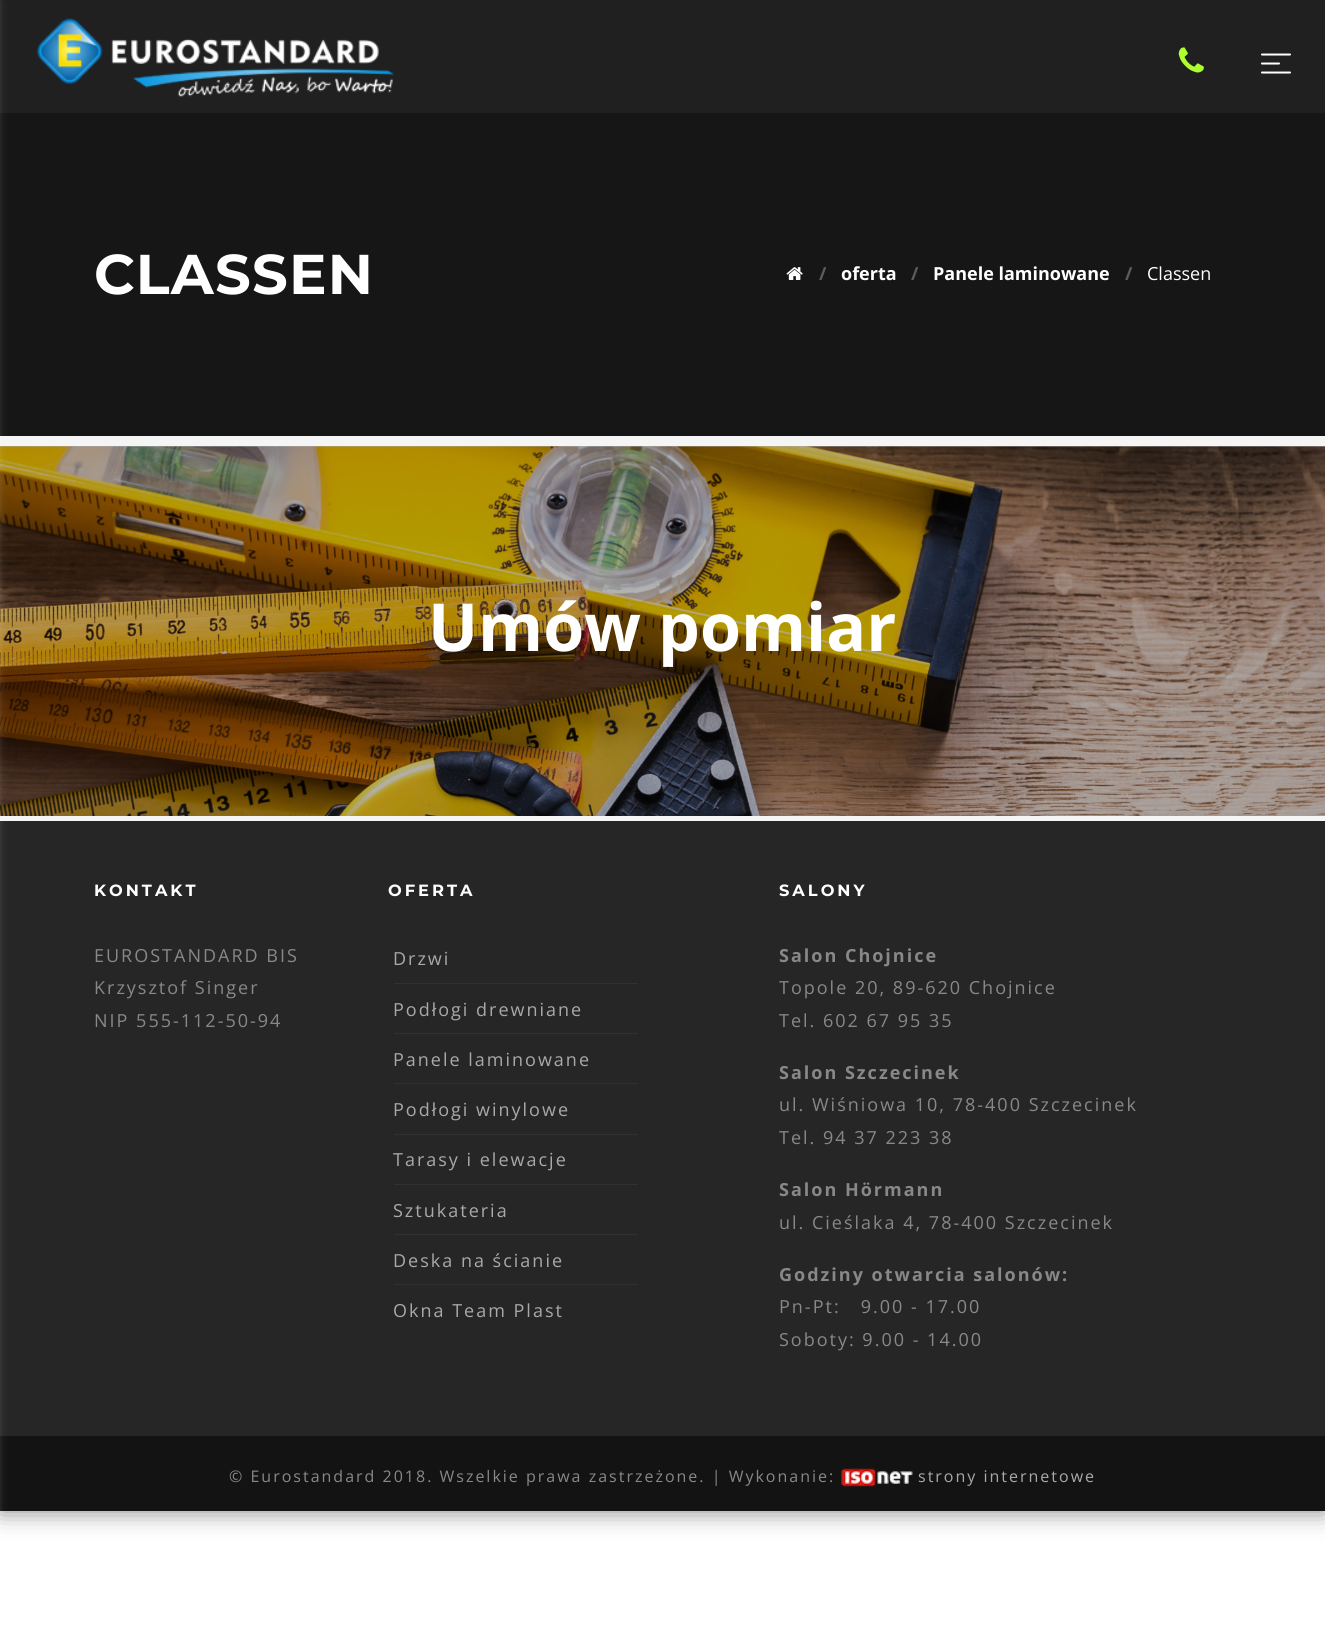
#include <cairo.h>
#include <math.h>
#include <stddef.h>

static cairo_t *ctx;

static void use_color(int r, int g, int b) {
    cairo_set_source_rgb(ctx, r / 255.0, g / 255.0, b / 255.0);
}

static void spaced_text(double x, double y, const char *s, double letter, double word) {
    cairo_move_to(ctx, x, y);
    while (*s) {
        char ch[5] = {0};
        int n = 0;
        do ch[n++] = *s++; while ((*s & 0xC0) == 0x80);
        cairo_show_text(ctx, ch);
        cairo_rel_move_to(ctx, letter + word * (*ch == ' '), 0);
    }
}

static void round_rect(double x, double y, double w, double h, double r) {
    cairo_new_sub_path(ctx);
    cairo_arc(ctx, x + w - r, y + h - r, r, 0, M_PI / 2);
    cairo_arc(ctx, x + r, y + h - r, r, M_PI / 2, M_PI);
    cairo_arc(ctx, x + r, y + r, r, M_PI, 1.5 * M_PI);
    cairo_arc(ctx, x + w - r, y + r, r, 1.5 * M_PI, 2 * M_PI);
    cairo_close_path(ctx);
}

static void shadow(double x, double y, double w, double h, double r, double blur, double alpha) {
    cairo_push_group_with_content(ctx, CAIRO_CONTENT_ALPHA);
    cairo_set_operator(ctx, CAIRO_OPERATOR_SOURCE);
    for (int i = 15; i >= -15 && fmin(w, h) + blur * i / 3 > 0; i -= 2) {
        double e = blur * i / 6;
        cairo_set_source_rgba(ctx, 0, 0, 0, alpha * erfc((i - 1) / 8.5) / 2);
        round_rect(x - e, y - e, w + 2 * e, h + 2 * e, fmax(0, fmin(r + e + blur * .6, fmin(w, h) / 2 + e)));
        cairo_fill(ctx);
    }
    cairo_pattern_t *soft = cairo_pop_group(ctx);
    cairo_mask(ctx, soft);
    cairo_pattern_destroy(soft);
}

static void picture(const char *path, double x, double y, double w, double h) {
    cairo_surface_t *image = cairo_image_surface_create_from_png(path);
    cairo_save(ctx);
    cairo_set_source_surface(ctx, image, x, y);
    cairo_rectangle(ctx, x, y, w, h);
    cairo_fill(ctx);
    cairo_restore(ctx);
    cairo_surface_destroy(image);
}

int main(void) {
    cairo_surface_t *surface = cairo_image_surface_create(CAIRO_FORMAT_RGB24, 1325, 1646);
    ctx = cairo_create(surface);
    cairo_font_options_t *options = cairo_font_options_create();
    cairo_font_options_set_hint_metrics(options, CAIRO_HINT_METRICS_OFF);
    cairo_font_options_set_hint_style(options, CAIRO_HINT_STYLE_NONE);
    cairo_set_font_options(ctx, options);
    cairo_set_miter_limit(ctx, 4);
    use_color(255, 255, 255);
    cairo_paint(ctx);
    use_color(0, 0, 0);
    shadow(0, 0, 1325, 1511, 0, 12.5, 0.5);
    use_color(32, 32, 32);
    cairo_rectangle(ctx, 0, 0, 1325, 113);
    cairo_fill(ctx);
    picture("img1.png", 37, 18, 357, 79);
    picture("img2.png", 1178, 47, 26, 26);
    picture("img3.png", 1261, 53, 30, 21);
    use_color(22, 22, 22);
    cairo_rectangle(ctx, 0, 113, 1325, 323);
    cairo_fill(ctx);
    use_color(245, 245, 245);
    cairo_rectangle(ctx, 0, 436, 1325, 10);
    cairo_fill(ctx);
    use_color(172, 172, 172);
    cairo_rectangle(ctx, 0, 446, 1325, 1);
    cairo_fill(ctx);
    picture("img5.png", 0, 446, 1325, 370);
    use_color(38, 38, 38);
    cairo_rectangle(ctx, 0, 821, 1325, 615);
    cairo_fill(ctx);
    use_color(245, 245, 245);
    cairo_rectangle(ctx, 0, 816, 1325, 5);
    cairo_fill(ctx);
    use_color(19, 19, 19);
    cairo_rectangle(ctx, 0, 1436, 1325, 75);
    cairo_fill(ctx);
    use_color(255, 255, 255);
    shadow(-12, 1, 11, 1644, 0, 4, 0.2);
    cairo_select_font_face(ctx, "Montserrat", CAIRO_FONT_SLANT_NORMAL, CAIRO_FONT_WEIGHT_BOLD);
    cairo_set_font_size(ctx, 56);
    use_color(255, 255, 255);
    spaced_text(94, 294, "CLASSEN", 1.25, 0);
    picture("img4.png", 786, 267, 17, 13);
    cairo_select_font_face(ctx, "Open Sans", CAIRO_FONT_SLANT_NORMAL, CAIRO_FONT_WEIGHT_BOLD);
    cairo_set_font_size(ctx, 18);
    use_color(92, 92, 92);
    cairo_move_to(ctx, 819, 280);
    cairo_show_text(ctx, "/");
    use_color(255, 255, 255);
    cairo_move_to(ctx, 841, 280);
    cairo_show_text(ctx, "oferta");
    use_color(92, 92, 92);
    cairo_move_to(ctx, 911, 280);
    cairo_show_text(ctx, "/");
    use_color(255, 255, 255);
    cairo_move_to(ctx, 933, 280);
    cairo_show_text(ctx, "Panele laminowane");
    use_color(92, 92, 92);
    cairo_move_to(ctx, 1125, 280);
    cairo_show_text(ctx, "/");
    cairo_select_font_face(ctx, "Open Sans", CAIRO_FONT_SLANT_NORMAL, CAIRO_FONT_WEIGHT_NORMAL);
    use_color(255, 255, 255);
    cairo_move_to(ctx, 1147, 280);
    cairo_show_text(ctx, "Classen");
    cairo_select_font_face(ctx, "Open Sans", CAIRO_FONT_SLANT_NORMAL, CAIRO_FONT_WEIGHT_BOLD);
    cairo_set_font_size(ctx, 66.25);
    cairo_move_to(ctx, 428, 651);
    cairo_show_text(ctx, "Umów pomiar");
    cairo_select_font_face(ctx, "Montserrat", CAIRO_FONT_SLANT_NORMAL, CAIRO_FONT_WEIGHT_BOLD);
    cairo_set_font_size(ctx, 16.25);
    spaced_text(94, 896, "KONTAKT", 3, 0);
    cairo_select_font_face(ctx, "Open Sans", CAIRO_FONT_SLANT_NORMAL, CAIRO_FONT_WEIGHT_NORMAL);
    cairo_set_font_size(ctx, 18);
    use_color(136, 136, 136);
    spaced_text(94, 962, "EUROSTANDARD BIS", 2, 0);
    spaced_text(94, 994, "Krzysztof Singer", 2, 0);
    spaced_text(94, 1027, "NIP 555-112-50-94", 2, 0);
    cairo_select_font_face(ctx, "Montserrat", CAIRO_FONT_SLANT_NORMAL, CAIRO_FONT_WEIGHT_BOLD);
    cairo_set_font_size(ctx, 16.25);
    use_color(255, 255, 255);
    spaced_text(388, 896, "OFERTA", 3, 0);
    use_color(49, 49, 49);
    cairo_rectangle(ctx, 394, 983, 244, 1);
    cairo_fill(ctx);
    cairo_select_font_face(ctx, "Open Sans", CAIRO_FONT_SLANT_NORMAL, CAIRO_FONT_WEIGHT_NORMAL);
    cairo_set_font_size(ctx, 18);
    use_color(169, 169, 169);
    spaced_text(393, 965, "Drzwi", 2, 0);
    use_color(49, 49, 49);
    cairo_rectangle(ctx, 394, 1033, 244, 1);
    cairo_fill(ctx);
    use_color(169, 169, 169);
    spaced_text(393, 1016, "Podłogi drewniane", 2, 0);
    use_color(49, 49, 49);
    cairo_rectangle(ctx, 394, 1083, 244, 1);
    cairo_fill(ctx);
    use_color(169, 169, 169);
    spaced_text(393, 1066, "Panele laminowane", 2, 0);
    use_color(49, 49, 49);
    cairo_rectangle(ctx, 394, 1134, 244, 1);
    cairo_fill(ctx);
    use_color(169, 169, 169);
    spaced_text(393, 1116, "Podłogi winylowe", 2, 0);
    use_color(49, 49, 49);
    cairo_rectangle(ctx, 394, 1184, 244, 1);
    cairo_fill(ctx);
    use_color(169, 169, 169);
    spaced_text(393, 1166, "Tarasy i elewacje", 2, 0);
    use_color(49, 49, 49);
    cairo_rectangle(ctx, 394, 1234, 244, 1);
    cairo_fill(ctx);
    use_color(169, 169, 169);
    spaced_text(393, 1217, "Sztukateria", 2, 0);
    use_color(49, 49, 49);
    cairo_rectangle(ctx, 394, 1284, 244, 1);
    cairo_fill(ctx);
    use_color(169, 169, 169);
    spaced_text(393, 1267, "Deska na ścianie", 2, 0);
    spaced_text(393, 1317, "Okna Team Plast", 2, 0);
    cairo_select_font_face(ctx, "Montserrat", CAIRO_FONT_SLANT_NORMAL, CAIRO_FONT_WEIGHT_BOLD);
    cairo_set_font_size(ctx, 16.25);
    use_color(255, 255, 255);
    spaced_text(779, 896, "SALONY", 3, 0);
    cairo_select_font_face(ctx, "Open Sans", CAIRO_FONT_SLANT_NORMAL, CAIRO_FONT_WEIGHT_BOLD);
    cairo_set_font_size(ctx, 18);
    use_color(136, 136, 136);
    spaced_text(779, 962, "Salon Chojnice", 2, 0);
    cairo_select_font_face(ctx, "Open Sans", CAIRO_FONT_SLANT_NORMAL, CAIRO_FONT_WEIGHT_NORMAL);
    spaced_text(779, 994, "Topole 20, 89-620 Chojnice", 2, 0);
    spaced_text(779, 1027, "Tel. 602 67 95 35", 2, 0);
    cairo_select_font_face(ctx, "Open Sans", CAIRO_FONT_SLANT_NORMAL, CAIRO_FONT_WEIGHT_BOLD);
    spaced_text(779, 1079, "Salon Szczecinek", 2, 0);
    cairo_select_font_face(ctx, "Open Sans", CAIRO_FONT_SLANT_NORMAL, CAIRO_FONT_WEIGHT_NORMAL);
    spaced_text(779, 1111, "ul. Wiśniowa 10, 78-400 Szczecinek", 2, 0);
    spaced_text(779, 1144, "Tel. 94 37 223 38", 2, 0);
    cairo_select_font_face(ctx, "Open Sans", CAIRO_FONT_SLANT_NORMAL, CAIRO_FONT_WEIGHT_BOLD);
    spaced_text(779, 1196, "Salon Hörmann", 2, 0);
    cairo_select_font_face(ctx, "Open Sans", CAIRO_FONT_SLANT_NORMAL, CAIRO_FONT_WEIGHT_NORMAL);
    spaced_text(779, 1229, "ul. Cieślaka 4, 78-400 Szczecinek", 2, 0);
    cairo_select_font_face(ctx, "Open Sans", CAIRO_FONT_SLANT_NORMAL, CAIRO_FONT_WEIGHT_BOLD);
    spaced_text(779, 1281, "Godziny otwarcia salonów:", 2, 0);
    cairo_select_font_face(ctx, "Open Sans", CAIRO_FONT_SLANT_NORMAL, CAIRO_FONT_WEIGHT_NORMAL);
    spaced_text(779, 1313, "Pn-Pt:   9.00 - 17.00", 2, 0);
    spaced_text(779, 1346, "Soboty: 9.00 - 14.00", 2, 0);
    cairo_set_font_size(ctx, 16);
    spaced_text(229, 1482, "© Eurostandard 2018. Wszelkie prawa zastrzeżone. | Wykonanie:", 2, 0);
    picture("img6.png", 841, 1468, 72, 19);
    use_color(169, 169, 169);
    spaced_text(918, 1482, "strony internetowe", 2, 0);
    cairo_surface_write_to_png(surface, "result.png");
    cairo_font_options_destroy(options);
    cairo_destroy(ctx);
    cairo_surface_destroy(surface);
    return 0;
}
